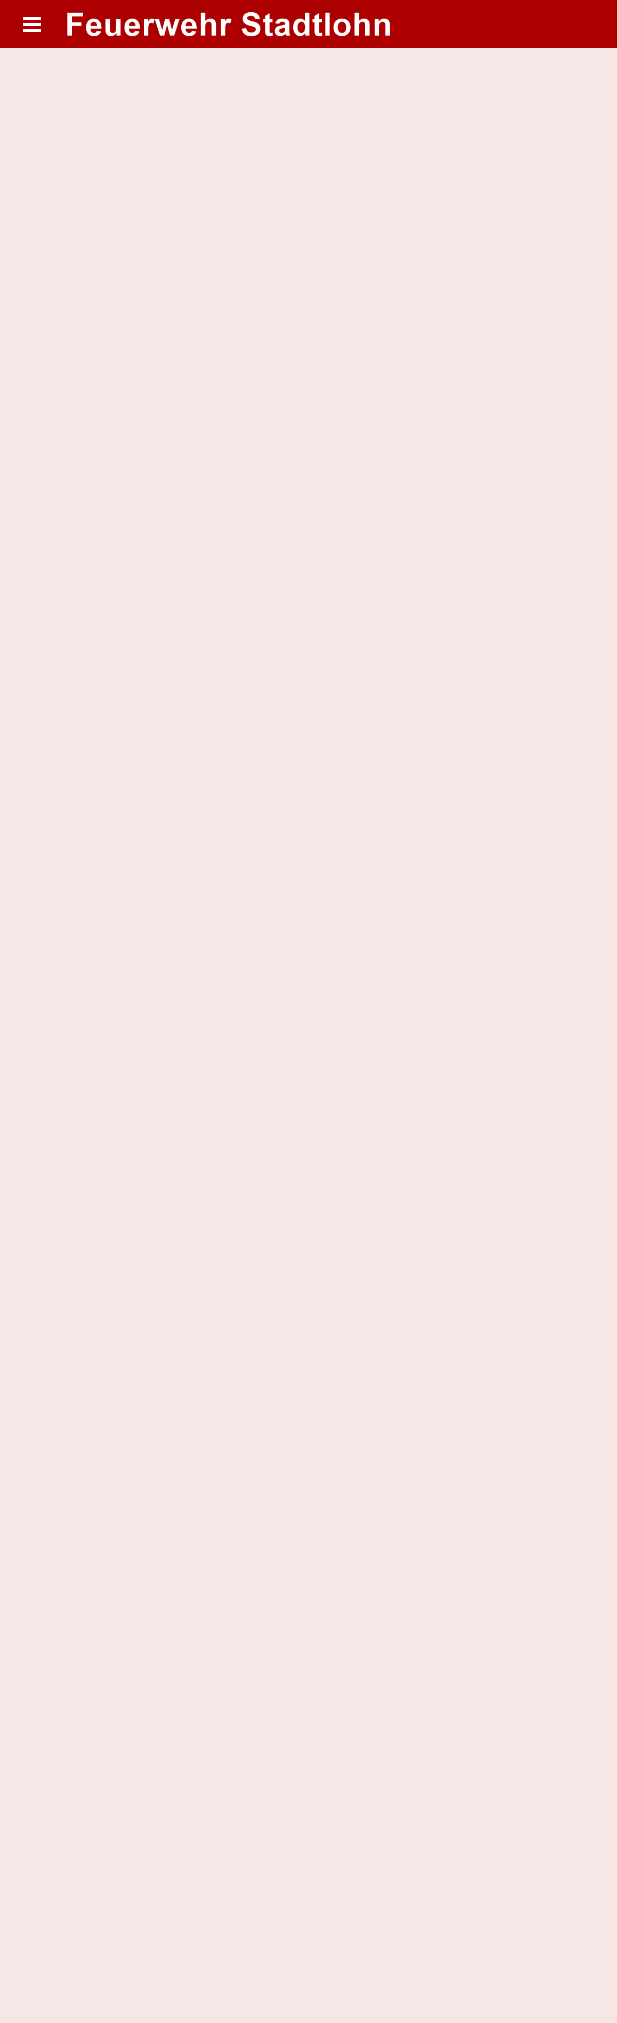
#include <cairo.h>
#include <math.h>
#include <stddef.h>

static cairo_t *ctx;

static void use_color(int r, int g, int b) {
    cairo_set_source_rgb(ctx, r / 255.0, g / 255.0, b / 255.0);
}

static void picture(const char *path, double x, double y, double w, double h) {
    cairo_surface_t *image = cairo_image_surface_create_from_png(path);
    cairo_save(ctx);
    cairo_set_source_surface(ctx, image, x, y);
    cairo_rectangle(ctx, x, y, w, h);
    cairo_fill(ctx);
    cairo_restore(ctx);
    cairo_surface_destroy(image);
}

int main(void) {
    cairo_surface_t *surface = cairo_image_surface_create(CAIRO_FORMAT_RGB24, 617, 2023);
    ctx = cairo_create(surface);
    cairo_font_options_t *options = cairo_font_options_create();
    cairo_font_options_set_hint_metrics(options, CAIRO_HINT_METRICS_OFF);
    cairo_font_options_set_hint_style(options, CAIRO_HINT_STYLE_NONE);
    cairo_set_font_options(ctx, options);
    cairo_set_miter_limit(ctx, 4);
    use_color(247, 230, 230);
    cairo_paint(ctx);
    use_color(172, 0, 0);
    cairo_rectangle(ctx, 0, 0, 617, 48);
    cairo_fill(ctx);
    use_color(255, 255, 255);
    cairo_rectangle(ctx, 23, 17, 18, 3);
    cairo_fill(ctx);
    cairo_rectangle(ctx, 23, 23, 18, 3);
    cairo_fill(ctx);
    cairo_rectangle(ctx, 23, 29, 18, 3);
    cairo_fill(ctx);
    picture("img1.png", 67, 12, 323, 25);
    cairo_surface_write_to_png(surface, "result.png");
    cairo_font_options_destroy(options);
    cairo_destroy(ctx);
    cairo_surface_destroy(surface);
    return 0;
}
